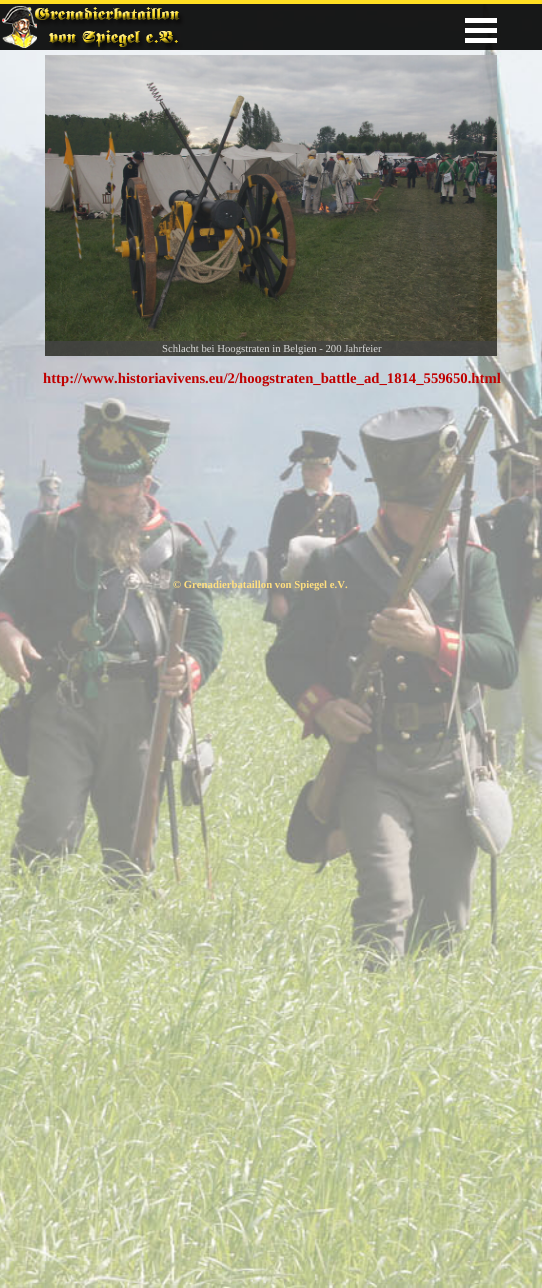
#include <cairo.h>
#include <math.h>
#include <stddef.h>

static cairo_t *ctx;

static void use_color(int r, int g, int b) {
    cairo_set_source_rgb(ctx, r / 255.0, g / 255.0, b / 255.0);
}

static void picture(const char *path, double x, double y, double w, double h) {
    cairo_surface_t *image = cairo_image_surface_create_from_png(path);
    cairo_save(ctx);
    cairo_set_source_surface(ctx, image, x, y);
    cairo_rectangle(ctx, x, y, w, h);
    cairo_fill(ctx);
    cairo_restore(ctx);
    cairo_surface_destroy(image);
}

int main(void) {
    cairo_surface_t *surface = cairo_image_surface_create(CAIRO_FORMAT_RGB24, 542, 1288);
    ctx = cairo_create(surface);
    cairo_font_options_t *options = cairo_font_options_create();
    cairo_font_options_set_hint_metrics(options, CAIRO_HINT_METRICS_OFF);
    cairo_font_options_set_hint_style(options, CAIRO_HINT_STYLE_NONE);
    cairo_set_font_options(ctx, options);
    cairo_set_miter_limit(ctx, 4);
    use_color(255, 255, 255);
    cairo_paint(ctx);
    picture("img1.png", 0, 4, 542, 1284);
    picture("img2.png", 0, 0, 542, 50);
    use_color(255, 255, 255);
    cairo_rectangle(ctx, 465, 18, 32, 5);
    cairo_fill(ctx);
    cairo_rectangle(ctx, 465, 28, 32, 5);
    cairo_fill(ctx);
    cairo_rectangle(ctx, 465, 38, 32, 5);
    cairo_fill(ctx);
    picture("img3.png", 45, 55, 452, 301);
    cairo_set_source_rgba(ctx, 0.267, 0.267, 0.267, 0.8);
    cairo_rectangle(ctx, 45, 341, 452, 15);
    cairo_fill(ctx);
    cairo_select_font_face(ctx, "Liberation Serif", CAIRO_FONT_SLANT_NORMAL, CAIRO_FONT_WEIGHT_NORMAL);
    cairo_set_font_size(ctx, 10.7);
    use_color(218, 218, 217);
    cairo_move_to(ctx, 162, 352);
    cairo_show_text(ctx, "Schlacht bei Hoogstraten in Belgien - 200 Jahrfeier");
    cairo_select_font_face(ctx, "Liberation Serif", CAIRO_FONT_SLANT_NORMAL, CAIRO_FONT_WEIGHT_BOLD);
    cairo_set_font_size(ctx, 14.7);
    use_color(192, 0, 0);
    cairo_move_to(ctx, 43, 383);
    cairo_show_text(ctx, "http://www.historiavivens.eu/2/hoogstraten_battle_ad_1814_559650.html");
    cairo_set_font_size(ctx, 10.75);
    use_color(255, 223, 128);
    cairo_move_to(ctx, 173, 588);
    cairo_show_text(ctx, "© Grenadierbataillon von Spiegel e.V.");
    cairo_surface_write_to_png(surface, "result.png");
    cairo_font_options_destroy(options);
    cairo_destroy(ctx);
    cairo_surface_destroy(surface);
    return 0;
}
